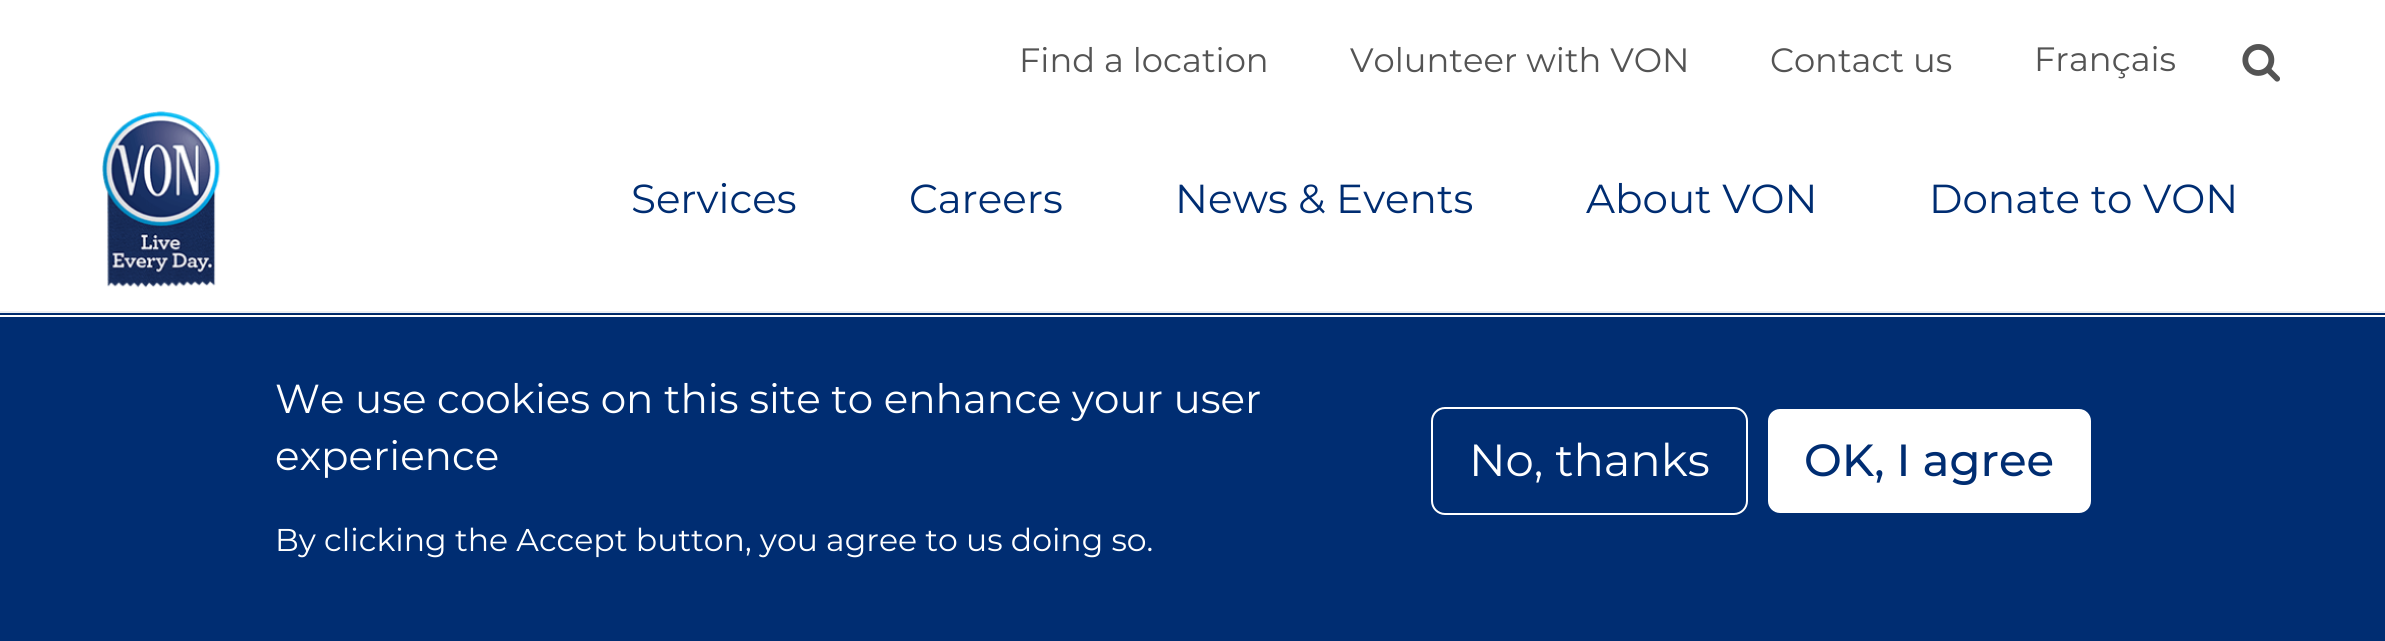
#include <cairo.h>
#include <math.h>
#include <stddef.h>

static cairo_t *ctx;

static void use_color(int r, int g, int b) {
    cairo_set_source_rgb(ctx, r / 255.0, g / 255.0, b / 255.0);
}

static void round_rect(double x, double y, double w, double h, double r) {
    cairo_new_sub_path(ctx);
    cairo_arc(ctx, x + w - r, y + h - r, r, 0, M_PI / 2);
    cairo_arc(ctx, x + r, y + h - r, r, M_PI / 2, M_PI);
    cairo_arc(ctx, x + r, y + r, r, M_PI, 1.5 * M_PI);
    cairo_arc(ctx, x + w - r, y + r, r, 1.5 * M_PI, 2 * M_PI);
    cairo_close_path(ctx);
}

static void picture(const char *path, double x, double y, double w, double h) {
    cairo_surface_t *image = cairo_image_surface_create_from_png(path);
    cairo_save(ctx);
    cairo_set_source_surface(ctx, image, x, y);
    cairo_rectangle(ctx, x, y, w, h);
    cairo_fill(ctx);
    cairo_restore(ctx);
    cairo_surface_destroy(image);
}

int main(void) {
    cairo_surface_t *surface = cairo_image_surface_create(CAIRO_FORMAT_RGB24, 2385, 641);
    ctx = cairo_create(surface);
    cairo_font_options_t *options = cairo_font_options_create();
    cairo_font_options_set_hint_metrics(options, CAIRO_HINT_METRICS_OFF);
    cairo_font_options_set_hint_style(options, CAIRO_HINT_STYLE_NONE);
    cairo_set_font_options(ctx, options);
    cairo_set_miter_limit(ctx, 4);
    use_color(0, 45, 114);
    cairo_paint(ctx);
    use_color(255, 255, 255);
    cairo_rectangle(ctx, 0, 0, 2385, 311);
    cairo_fill(ctx);
    use_color(236, 238, 241);
    cairo_rectangle(ctx, 0, 311, 2385, 2);
    cairo_fill(ctx);
    cairo_select_font_face(ctx, "Montserrat", CAIRO_FONT_SLANT_NORMAL, CAIRO_FONT_WEIGHT_NORMAL);
    cairo_set_font_size(ctx, 33.75);
    use_color(84, 84, 84);
    cairo_move_to(ctx, 1019, 72);
    cairo_show_text(ctx, "Find a location");
    cairo_move_to(ctx, 1350, 72);
    cairo_show_text(ctx, "Volunteer with VON");
    cairo_move_to(ctx, 1770, 72);
    cairo_show_text(ctx, "Contact us");
    cairo_move_to(ctx, 2034, 71);
    cairo_show_text(ctx, "Français");
    picture("img1.png", 2242, 44, 38, 38);
    picture("img2.png", 102, 111, 119, 177);
    cairo_set_font_size(ctx, 40.5);
    use_color(0, 45, 114);
    cairo_move_to(ctx, 631, 213);
    cairo_show_text(ctx, "Services");
    cairo_move_to(ctx, 909, 213);
    cairo_show_text(ctx, "Careers");
    cairo_move_to(ctx, 1175, 213);
    cairo_show_text(ctx, "News & Events");
    cairo_move_to(ctx, 1586, 213);
    cairo_show_text(ctx, "About VON");
    cairo_move_to(ctx, 1929, 213);
    cairo_show_text(ctx, "Donate to VON");
    picture("img3.png", 0, 314, 2385, 1);
    use_color(255, 255, 255);
    cairo_rectangle(ctx, 0, 315, 2385, 2);
    cairo_fill(ctx);
    cairo_move_to(ctx, 275, 413);
    cairo_show_text(ctx, "We use cookies on this site to enhance your user");
    cairo_move_to(ctx, 275, 470);
    cairo_show_text(ctx, "experience");
    cairo_set_font_size(ctx, 31.5);
    cairo_move_to(ctx, 275, 551);
    cairo_show_text(ctx, "By clicking the Accept button, you agree to us doing so.");
    round_rect(1432, 408, 315, 106, 13);
    cairo_stroke(ctx);
    cairo_set_font_size(ctx, 45);
    cairo_move_to(ctx, 1469, 476);
    cairo_show_text(ctx, "No, thanks");
    round_rect(1767, 408, 325, 106, 13);
    cairo_fill_preserve(ctx);
    use_color(0, 45, 114);
    cairo_stroke(ctx);
    cairo_select_font_face(ctx, "Montserrat Medium", CAIRO_FONT_SLANT_NORMAL, CAIRO_FONT_WEIGHT_NORMAL);
    cairo_move_to(ctx, 1804, 476);
    cairo_show_text(ctx, "OK, I agree");
    cairo_surface_write_to_png(surface, "result.png");
    cairo_font_options_destroy(options);
    cairo_destroy(ctx);
    cairo_surface_destroy(surface);
    return 0;
}
